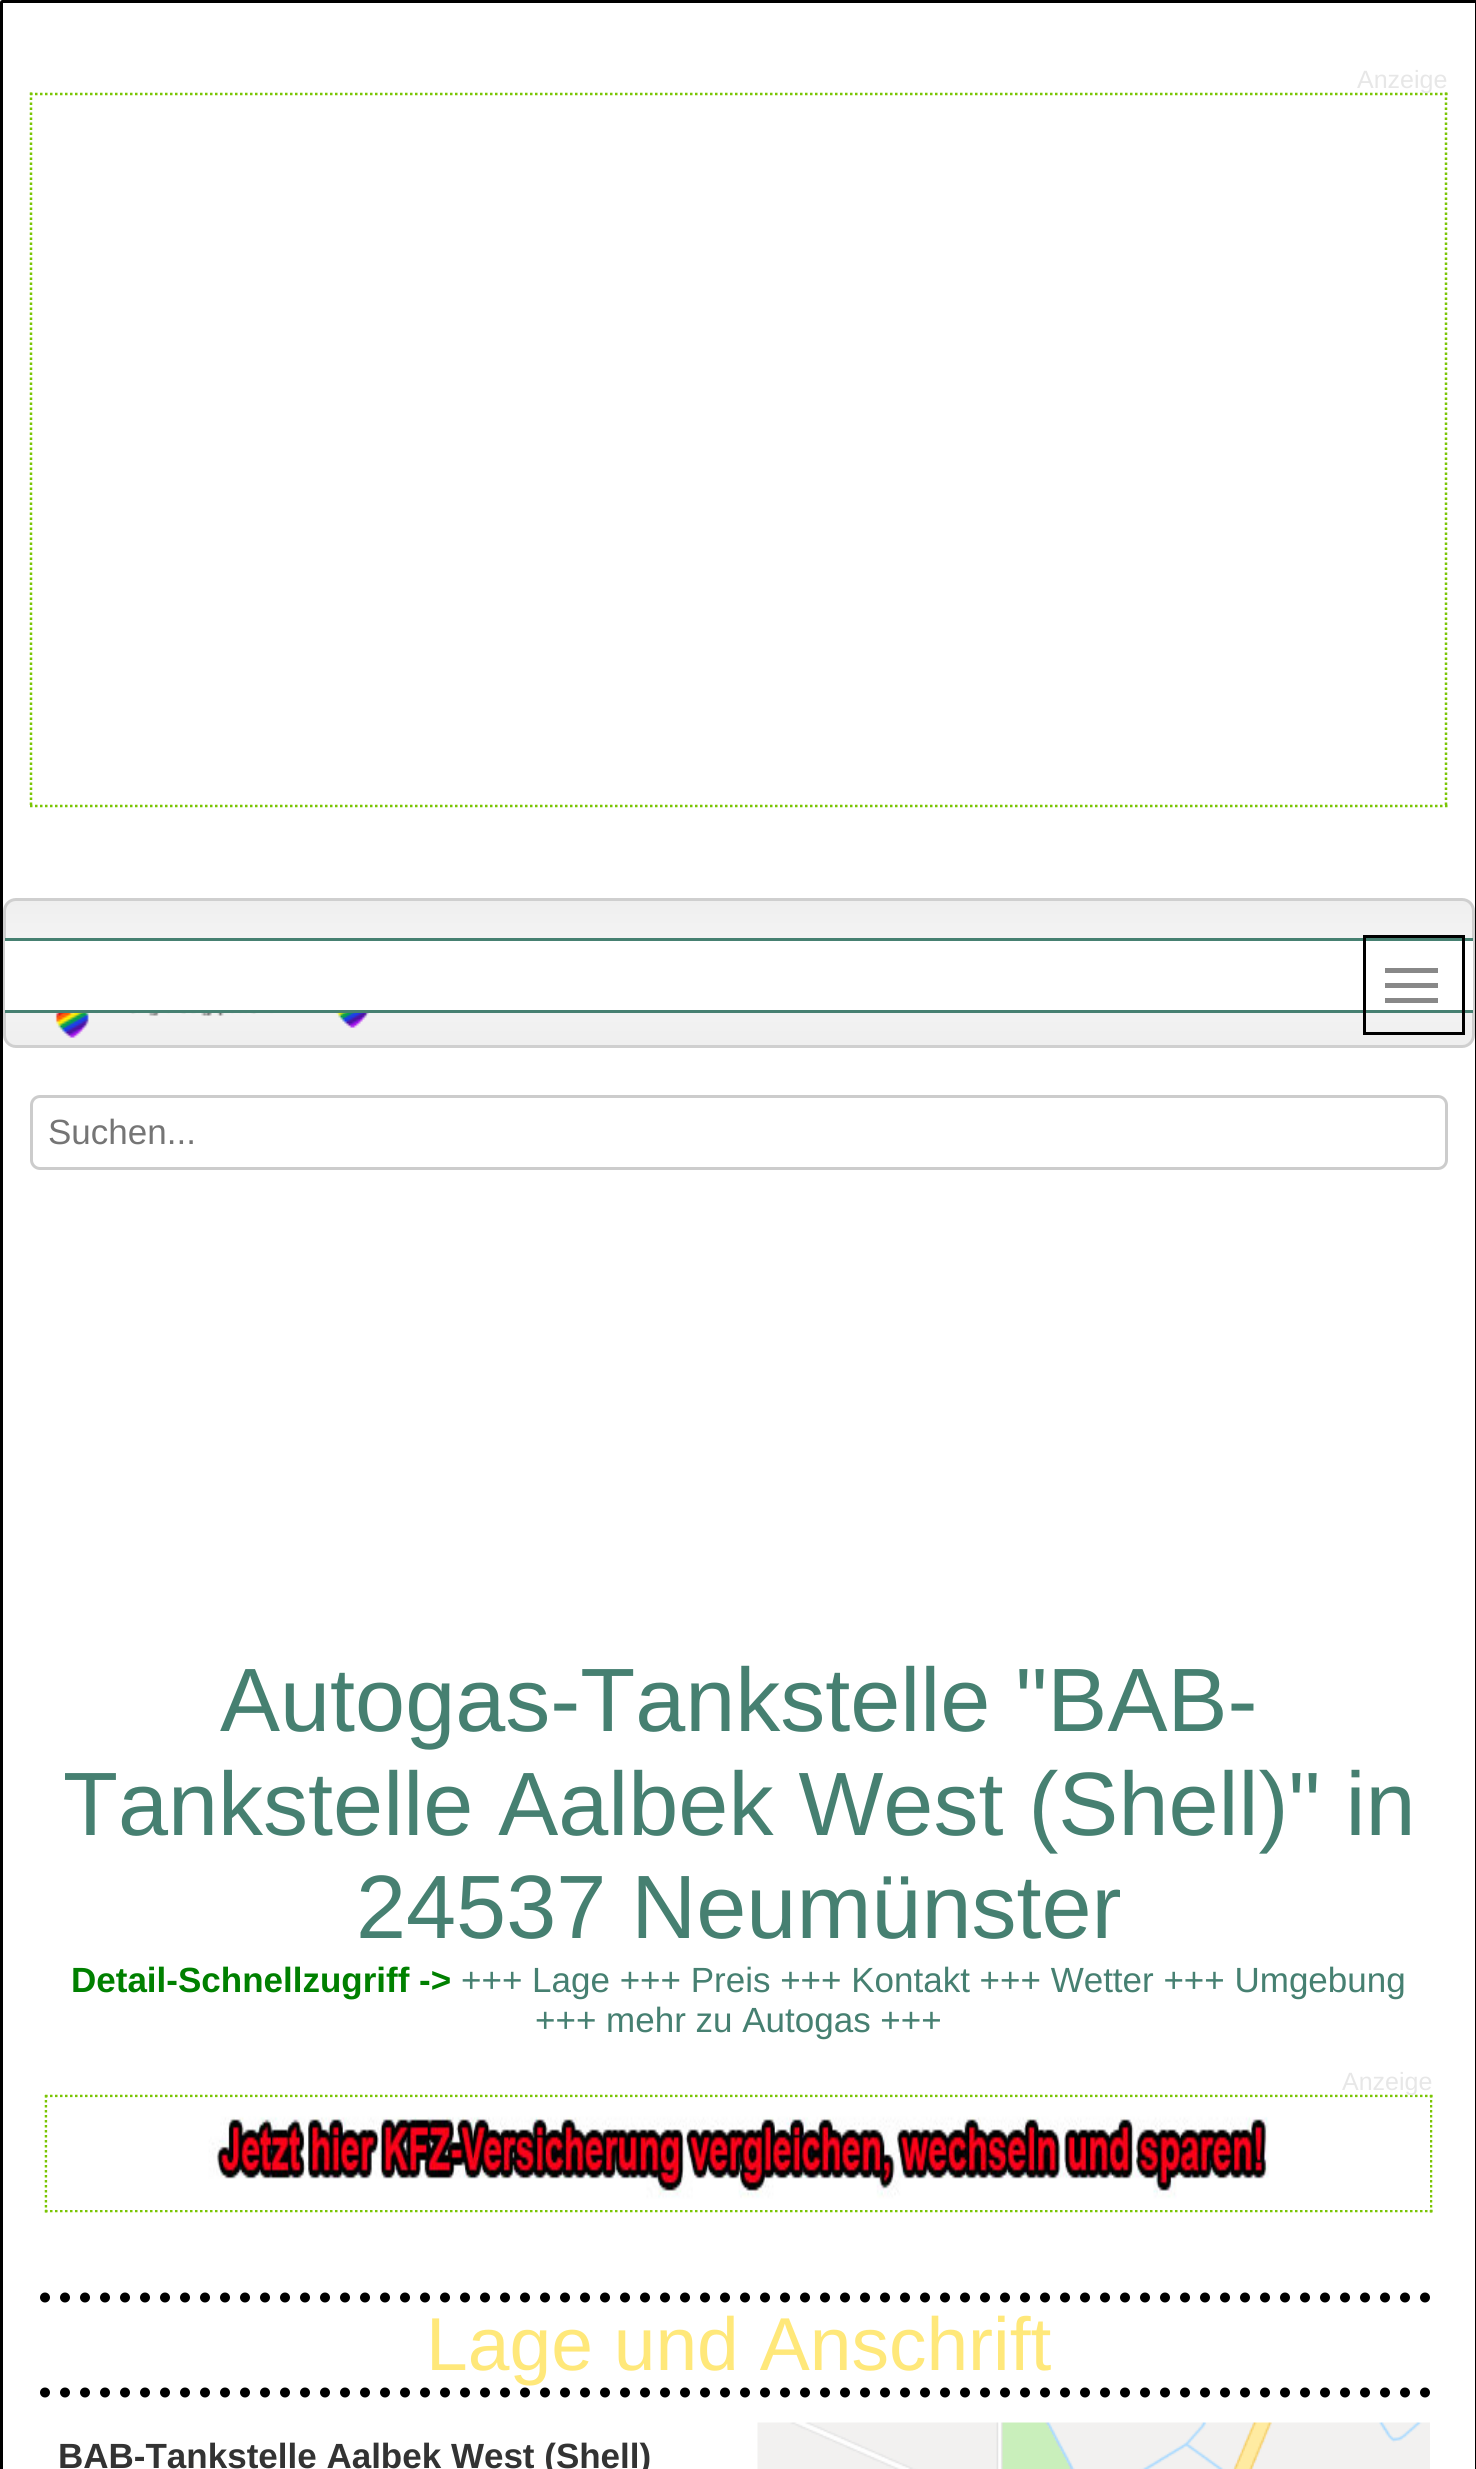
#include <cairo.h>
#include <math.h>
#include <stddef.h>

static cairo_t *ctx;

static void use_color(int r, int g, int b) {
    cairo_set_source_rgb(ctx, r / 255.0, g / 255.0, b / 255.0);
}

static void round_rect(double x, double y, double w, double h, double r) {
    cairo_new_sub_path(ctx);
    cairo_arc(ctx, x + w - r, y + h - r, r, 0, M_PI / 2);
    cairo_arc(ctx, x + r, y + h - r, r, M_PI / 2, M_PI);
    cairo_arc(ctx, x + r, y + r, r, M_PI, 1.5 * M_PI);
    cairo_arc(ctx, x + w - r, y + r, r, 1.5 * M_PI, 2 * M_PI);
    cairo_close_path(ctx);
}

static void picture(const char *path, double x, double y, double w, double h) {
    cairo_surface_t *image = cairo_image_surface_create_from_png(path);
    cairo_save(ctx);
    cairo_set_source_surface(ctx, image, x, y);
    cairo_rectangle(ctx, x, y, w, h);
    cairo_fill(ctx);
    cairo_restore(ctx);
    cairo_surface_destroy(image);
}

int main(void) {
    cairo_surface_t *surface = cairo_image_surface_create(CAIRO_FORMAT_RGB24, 1476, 2469);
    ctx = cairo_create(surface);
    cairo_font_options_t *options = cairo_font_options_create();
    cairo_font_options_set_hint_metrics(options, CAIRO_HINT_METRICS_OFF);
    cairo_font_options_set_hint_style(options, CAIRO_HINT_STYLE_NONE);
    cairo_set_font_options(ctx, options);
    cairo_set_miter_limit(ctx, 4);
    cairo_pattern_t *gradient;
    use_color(255, 255, 255);
    cairo_paint(ctx);
    round_rect(1.5, 1.5, 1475, 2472, 1);
    use_color(0, 0, 0);
    cairo_set_line_width(ctx, 3);
    cairo_stroke(ctx);
    cairo_new_path(ctx);
    cairo_move_to(ctx, 30, 94);
    cairo_line_to(ctx, 1447.5, 94);
    use_color(122, 197, 3);
    cairo_set_line_width(ctx, 2.5);
    cairo_set_dash(ctx, (double[]){2.5, 2.5}, 2, 0);
    cairo_stroke(ctx);
    cairo_new_path(ctx);
    cairo_move_to(ctx, 1446, 92.5);
    cairo_line_to(ctx, 1446, 807.5);
    cairo_stroke(ctx);
    cairo_select_font_face(ctx, "Liberation Sans", CAIRO_FONT_SLANT_NORMAL, CAIRO_FONT_WEIGHT_NORMAL);
    cairo_set_font_size(ctx, 25);
    use_color(231, 231, 231);
    cairo_move_to(ctx, 1357, 88);
    cairo_show_text(ctx, "Anzeige");
    cairo_new_path(ctx);
    cairo_move_to(ctx, 30, 806);
    cairo_line_to(ctx, 1447.5, 806);
    use_color(122, 197, 3);
    cairo_stroke(ctx);
    cairo_new_path(ctx);
    cairo_move_to(ctx, 31, 92.5);
    cairo_line_to(ctx, 31, 807.5);
    cairo_stroke(ctx);
    gradient = cairo_pattern_create_linear(739, 900, 739, 1045);
    cairo_pattern_add_color_stop_rgba(gradient, 0, 0.937, 0.937, 0.937, 1);
    cairo_pattern_add_color_stop_rgba(gradient, 0.5, 0.969, 0.969, 0.969, 1);
    cairo_pattern_add_color_stop_rgba(gradient, 1, 0.937, 0.937, 0.937, 1);
    cairo_set_source(ctx, gradient);
    cairo_pattern_destroy(gradient);
    round_rect(5, 900, 1468, 145, 10);
    cairo_fill(ctx);
    round_rect(4.5, 899.5, 1469, 147, 11.5);
    use_color(207, 207, 207);
    cairo_set_line_width(ctx, 3);
    cairo_set_dash(ctx, NULL, 0, 0);
    cairo_stroke(ctx);
    use_color(255, 255, 255);
    cairo_rectangle(ctx, 5, 941, 1468, 69);
    cairo_fill(ctx);
    use_color(70, 128, 113);
    cairo_rectangle(ctx, 5, 938, 1468, 3);
    cairo_fill(ctx);
    cairo_rectangle(ctx, 5, 1010, 1468, 3);
    cairo_fill(ctx);
    cairo_rectangle(ctx, 1364.5, 936.5, 99, 97);
    use_color(0, 0, 0);
    cairo_stroke(ctx);
    use_color(136, 136, 136);
    cairo_rectangle(ctx, 1385, 968, 53, 5);
    cairo_fill(ctx);
    cairo_rectangle(ctx, 1385, 983, 53, 5);
    cairo_fill(ctx);
    cairo_rectangle(ctx, 1385, 998, 53, 5);
    cairo_fill(ctx);
    picture("img1.png", 55, 1013, 314, 25);
    round_rect(31.5, 1096.5, 1415, 72, 8.5);
    use_color(204, 204, 204);
    cairo_stroke(ctx);
    cairo_set_font_size(ctx, 35);
    use_color(117, 117, 117);
    cairo_move_to(ctx, 48, 1144);
    cairo_show_text(ctx, "Suchen...");
    cairo_set_font_size(ctx, 90);
    use_color(70, 128, 113);
    cairo_move_to(ctx, 220, 1731);
    cairo_show_text(ctx, "Autogas-Tankstelle \"BAB-");
    cairo_move_to(ctx, 63, 1835);
    cairo_show_text(ctx, "Tankstelle Aalbek West (Shell)\" in");
    cairo_move_to(ctx, 356, 1938);
    cairo_show_text(ctx, "24537 Neumünster");
    cairo_select_font_face(ctx, "Liberation Sans", CAIRO_FONT_SLANT_NORMAL, CAIRO_FONT_WEIGHT_BOLD);
    cairo_set_font_size(ctx, 35);
    use_color(0, 128, 0);
    cairo_move_to(ctx, 71, 1992);
    cairo_show_text(ctx, "Detail-Schnellzugriff ->");
    cairo_select_font_face(ctx, "Liberation Sans", CAIRO_FONT_SLANT_NORMAL, CAIRO_FONT_WEIGHT_NORMAL);
    use_color(70, 128, 113);
    cairo_move_to(ctx, 461, 1992);
    cairo_show_text(ctx, "+++ Lage +++ Preis +++ Kontakt +++ Wetter +++ Umgebung");
    cairo_move_to(ctx, 535, 2032);
    cairo_show_text(ctx, "+++ mehr zu Autogas +++");
    cairo_new_path(ctx);
    cairo_move_to(ctx, 45, 2096);
    cairo_line_to(ctx, 1432.5, 2096);
    use_color(122, 197, 3);
    cairo_set_line_width(ctx, 2.5);
    cairo_set_dash(ctx, (double[]){2.5, 2.5}, 2, 0);
    cairo_stroke(ctx);
    cairo_new_path(ctx);
    cairo_move_to(ctx, 1431, 2095);
    cairo_line_to(ctx, 1431, 2212.5);
    cairo_stroke(ctx);
    cairo_set_font_size(ctx, 25);
    use_color(231, 231, 231);
    cairo_move_to(ctx, 1342, 2090);
    cairo_show_text(ctx, "Anzeige");
    cairo_new_path(ctx);
    cairo_move_to(ctx, 45, 2211);
    cairo_line_to(ctx, 1432.5, 2211);
    use_color(122, 197, 3);
    cairo_stroke(ctx);
    cairo_new_path(ctx);
    cairo_move_to(ctx, 46, 2095);
    cairo_line_to(ctx, 46, 2212.5);
    cairo_stroke(ctx);
    picture("img2.png", 47, 2097, 1383, 113);
    cairo_new_path(ctx);
    cairo_move_to(ctx, 45, 2297.5);
    cairo_line_to(ctx, 1432.5, 2297.5);
    use_color(0, 0, 0);
    cairo_set_line_width(ctx, 10);
    cairo_set_line_cap(ctx, CAIRO_LINE_CAP_ROUND);
    cairo_set_dash(ctx, (double[]){0, 20}, 2, 0);
    cairo_stroke(ctx);
    cairo_new_path(ctx);
    cairo_move_to(ctx, 45, 2392.5);
    cairo_line_to(ctx, 1432.5, 2392.5);
    cairo_stroke(ctx);
    cairo_set_font_size(ctx, 75);
    use_color(255, 232, 122);
    cairo_move_to(ctx, 426, 2370);
    cairo_show_text(ctx, "Lage und Anschrift");
    cairo_select_font_face(ctx, "Liberation Sans", CAIRO_FONT_SLANT_NORMAL, CAIRO_FONT_WEIGHT_BOLD);
    cairo_set_font_size(ctx, 35);
    use_color(51, 51, 51);
    cairo_move_to(ctx, 58, 2468);
    cairo_show_text(ctx, "BAB-Tankstelle Aalbek West (Shell)");
    picture("img3.png", 757, 2422, 673, 47);
    cairo_surface_write_to_png(surface, "result.png");
    cairo_font_options_destroy(options);
    cairo_destroy(ctx);
    cairo_surface_destroy(surface);
    return 0;
}
